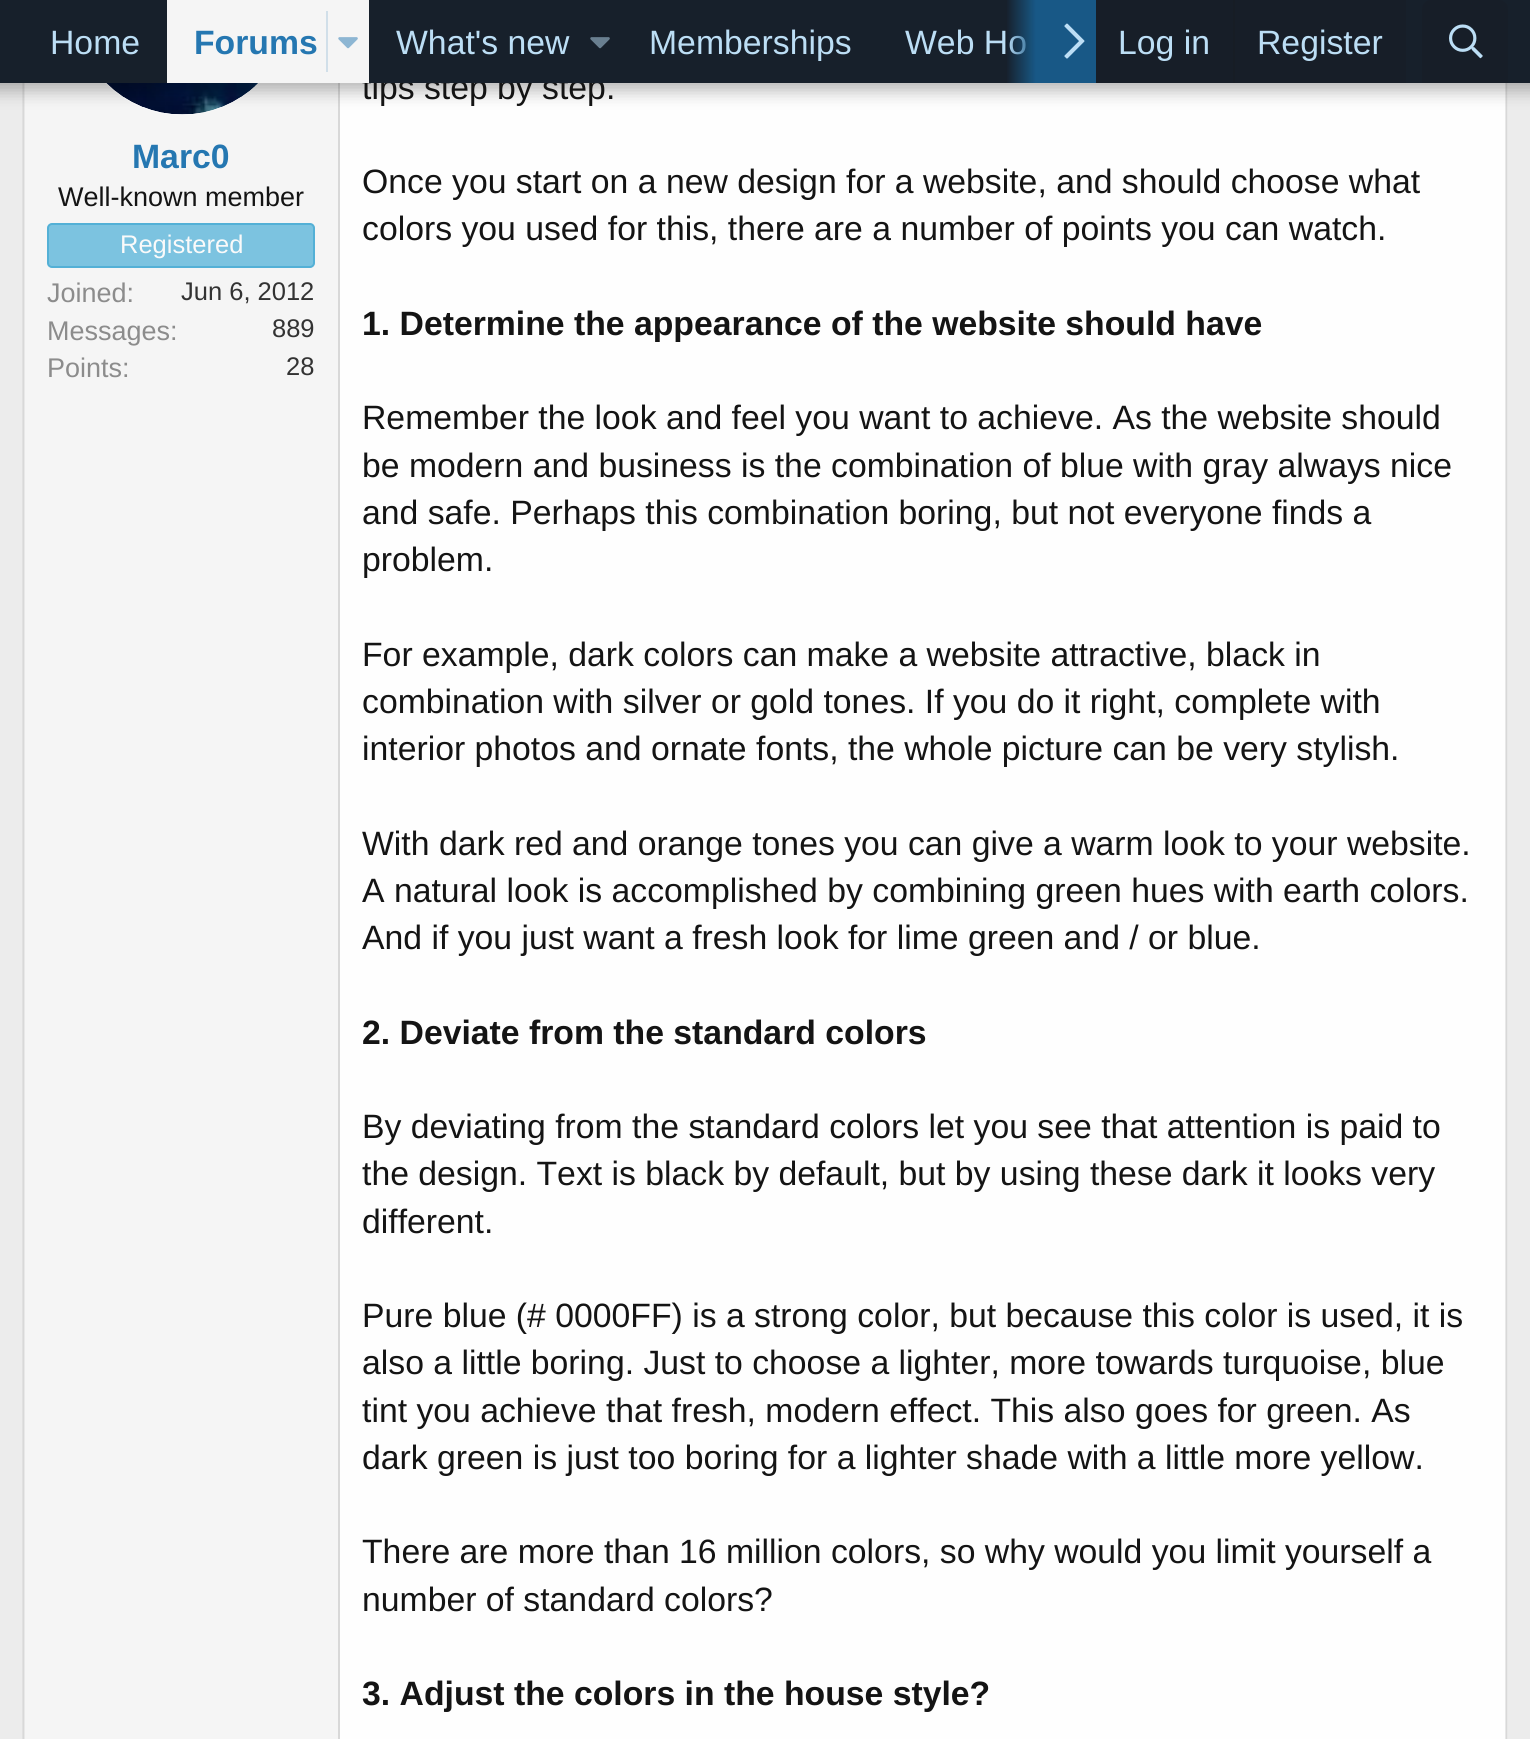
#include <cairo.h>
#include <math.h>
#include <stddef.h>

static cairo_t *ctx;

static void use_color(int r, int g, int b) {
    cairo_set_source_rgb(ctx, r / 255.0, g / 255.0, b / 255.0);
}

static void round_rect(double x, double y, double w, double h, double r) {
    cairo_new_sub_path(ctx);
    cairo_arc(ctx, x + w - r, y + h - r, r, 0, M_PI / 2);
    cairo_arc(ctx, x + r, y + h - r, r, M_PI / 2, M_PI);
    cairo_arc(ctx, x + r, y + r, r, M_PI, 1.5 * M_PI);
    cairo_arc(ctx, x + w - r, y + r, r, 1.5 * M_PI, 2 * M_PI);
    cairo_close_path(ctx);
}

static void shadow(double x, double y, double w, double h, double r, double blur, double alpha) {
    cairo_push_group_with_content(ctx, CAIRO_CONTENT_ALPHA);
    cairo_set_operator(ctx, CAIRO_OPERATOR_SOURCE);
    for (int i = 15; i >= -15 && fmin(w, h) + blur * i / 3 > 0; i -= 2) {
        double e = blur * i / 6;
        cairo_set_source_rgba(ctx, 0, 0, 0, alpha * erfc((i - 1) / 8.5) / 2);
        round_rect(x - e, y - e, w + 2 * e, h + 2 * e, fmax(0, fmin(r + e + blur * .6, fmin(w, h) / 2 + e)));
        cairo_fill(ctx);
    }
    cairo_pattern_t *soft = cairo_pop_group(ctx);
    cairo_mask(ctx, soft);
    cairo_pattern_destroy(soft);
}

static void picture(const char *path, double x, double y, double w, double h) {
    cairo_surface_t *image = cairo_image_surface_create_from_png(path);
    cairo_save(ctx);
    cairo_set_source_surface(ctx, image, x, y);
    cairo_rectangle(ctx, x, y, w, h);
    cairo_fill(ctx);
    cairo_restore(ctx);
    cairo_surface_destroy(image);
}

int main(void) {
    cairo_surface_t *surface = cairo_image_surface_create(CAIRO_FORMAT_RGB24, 1530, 1739);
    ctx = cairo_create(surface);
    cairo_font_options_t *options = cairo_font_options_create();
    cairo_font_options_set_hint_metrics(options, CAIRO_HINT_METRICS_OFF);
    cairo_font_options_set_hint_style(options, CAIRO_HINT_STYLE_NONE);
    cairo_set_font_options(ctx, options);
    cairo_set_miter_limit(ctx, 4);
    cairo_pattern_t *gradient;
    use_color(236, 236, 236);
    cairo_paint(ctx);
    use_color(254, 254, 254);
    cairo_rectangle(ctx, 24, 83, 1484, 1656);
    cairo_fill(ctx);
    cairo_new_path(ctx);
    cairo_move_to(ctx, 1504, -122.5);
    cairo_curve_to(ctx, 1505.5, -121, 1506.5, -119, 1506.5, -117);
    cairo_line_to(ctx, 1506.5, 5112);
    cairo_curve_to(ctx, 1506.5, 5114, 1505.5, 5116, 1504, 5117.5);
    use_color(216, 216, 216);
    cairo_set_line_width(ctx, 2.2);
    cairo_stroke(ctx);
    cairo_new_path(ctx);
    cairo_move_to(ctx, 26, 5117.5);
    cairo_curve_to(ctx, 24.5, 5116, 23.5, 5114, 23.5, 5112);
    cairo_line_to(ctx, 23.5, -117);
    cairo_curve_to(ctx, 23.5, -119, 24.5, -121, 26, -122.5);
    cairo_stroke(ctx);
    use_color(245, 245, 245);
    cairo_rectangle(ctx, 25, 83, 313, 1656);
    cairo_fill(ctx);
    use_color(216, 216, 216);
    cairo_rectangle(ctx, 338, 83, 2, 1656);
    cairo_fill(ctx);
    use_color(254, 254, 254);
    cairo_arc(ctx, 182, 7, 108, 0, 2 * M_PI);
    cairo_fill(ctx);
    picture("img5.png", 106, 83, 152, 32);
    use_color(0, 0, 0);
    shadow(-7, -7, 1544, 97, 0, 9, 0.3);
    cairo_select_font_face(ctx, "Liberation Sans", CAIRO_FONT_SLANT_NORMAL, CAIRO_FONT_WEIGHT_NORMAL);
    cairo_set_font_size(ctx, 33.75);
    use_color(20, 20, 20);
    cairo_move_to(ctx, 362, 99);
    cairo_show_text(ctx, "tips step by step.");
    use_color(23, 32, 43);
    cairo_rectangle(ctx, 0, 0, 1530, 83);
    cairo_fill(ctx);
    use_color(188, 222, 245);
    cairo_move_to(ctx, 50, 54);
    cairo_show_text(ctx, "Home");
    use_color(245, 245, 245);
    cairo_rectangle(ctx, 167, 0, 202, 83);
    cairo_fill(ctx);
    cairo_select_font_face(ctx, "Liberation Sans", CAIRO_FONT_SLANT_NORMAL, CAIRO_FONT_WEIGHT_BOLD);
    use_color(37, 119, 177);
    cairo_move_to(ctx, 194, 54);
    cairo_show_text(ctx, "Forums");
    use_color(209, 223, 233);
    cairo_rectangle(ctx, 326, 11, 2, 61);
    cairo_fill(ctx);
    picture("img1.png", 338, 37, 20, 12);
    cairo_select_font_face(ctx, "Liberation Sans", CAIRO_FONT_SLANT_NORMAL, CAIRO_FONT_WEIGHT_NORMAL);
    use_color(188, 222, 245);
    cairo_move_to(ctx, 396, 54);
    cairo_show_text(ctx, "What's new");
    picture("img2.png", 590, 37, 20, 12);
    cairo_move_to(ctx, 649, 54);
    cairo_show_text(ctx, "Memberships");
    cairo_move_to(ctx, 905, 54);
    cairo_show_text(ctx, "Web Ho");
    gradient = cairo_pattern_create_linear(1006, 42, 1096, 42);
    cairo_pattern_add_color_stop_rgba(gradient, 0, 0.094, 0.345, 0.525, 0);
    cairo_pattern_add_color_stop_rgba(gradient, 0.33, 0.094, 0.345, 0.525, 1);
    cairo_set_source(ctx, gradient);
    cairo_pattern_destroy(gradient);
    cairo_rectangle(ctx, 1007, 0, 89, 83);
    cairo_fill(ctx);
    picture("img3.png", 1064, 23, 21, 36);
    use_color(23, 30, 40);
    cairo_rectangle(ctx, 1096, 0, 310, 83);
    cairo_fill(ctx);
    use_color(188, 222, 245);
    cairo_move_to(ctx, 1118, 54);
    cairo_show_text(ctx, "Log in");
    use_color(23, 29, 37);
    cairo_rectangle(ctx, 1233, 0, 2, 83);
    cairo_fill(ctx);
    use_color(188, 222, 245);
    cairo_move_to(ctx, 1257, 54);
    cairo_show_text(ctx, "Register");
    use_color(23, 30, 40);
    cairo_new_path(ctx);
    cairo_move_to(ctx, 1431, 0);
    cairo_line_to(ctx, 1499, 0);
    cairo_curve_to(ctx, 1504, 0, 1508, 4, 1508, 9);
    cairo_line_to(ctx, 1508, 83);
    cairo_line_to(ctx, 1422, 83);
    cairo_line_to(ctx, 1422, 9);
    cairo_curve_to(ctx, 1422, 4, 1426, 0, 1431, 0);
    cairo_close_path(ctx);
    cairo_fill(ctx);
    picture("img4.png", 1449, 24, 34, 35);
    cairo_select_font_face(ctx, "Liberation Sans", CAIRO_FONT_SLANT_NORMAL, CAIRO_FONT_WEIGHT_BOLD);
    use_color(37, 119, 177);
    cairo_move_to(ctx, 132, 168);
    cairo_show_text(ctx, "Marc0");
    cairo_select_font_face(ctx, "Liberation Sans", CAIRO_FONT_SLANT_NORMAL, CAIRO_FONT_WEIGHT_NORMAL);
    cairo_set_font_size(ctx, 27);
    use_color(20, 20, 20);
    cairo_move_to(ctx, 58, 206);
    cairo_show_text(ctx, "Well-known member");
    use_color(124, 195, 224);
    round_rect(48, 224, 266, 43, 4);
    cairo_fill_preserve(ctx);
    use_color(83, 176, 214);
    cairo_set_line_width(ctx, 2);
    cairo_stroke(ctx);
    cairo_set_font_size(ctx, 25.5);
    use_color(250, 250, 250);
    cairo_move_to(ctx, 120, 253);
    cairo_show_text(ctx, "Registered");
    cairo_set_font_size(ctx, 27);
    use_color(140, 140, 140);
    cairo_move_to(ctx, 47, 302);
    cairo_show_text(ctx, "Joined:");
    cairo_set_font_size(ctx, 25.5);
    use_color(51, 51, 51);
    cairo_move_to(ctx, 181, 300);
    cairo_show_text(ctx, "Jun 6, 2012");
    cairo_set_font_size(ctx, 27);
    use_color(140, 140, 140);
    cairo_move_to(ctx, 47, 340);
    cairo_show_text(ctx, "Messages:");
    cairo_set_font_size(ctx, 25.5);
    use_color(51, 51, 51);
    cairo_move_to(ctx, 272, 337);
    cairo_show_text(ctx, "889");
    cairo_set_font_size(ctx, 27);
    use_color(140, 140, 140);
    cairo_move_to(ctx, 47, 377);
    cairo_show_text(ctx, "Points:");
    cairo_set_font_size(ctx, 25.5);
    use_color(51, 51, 51);
    cairo_move_to(ctx, 286, 375);
    cairo_show_text(ctx, "28");
    cairo_set_font_size(ctx, 33.75);
    use_color(20, 20, 20);
    cairo_move_to(ctx, 362, 193);
    cairo_show_text(ctx, "Once you start on a new design for a website, and should choose what");
    cairo_move_to(ctx, 362, 240);
    cairo_show_text(ctx, "colors you used for this, there are a number of points you can watch.");
    cairo_select_font_face(ctx, "Liberation Sans", CAIRO_FONT_SLANT_NORMAL, CAIRO_FONT_WEIGHT_BOLD);
    cairo_move_to(ctx, 362, 335);
    cairo_show_text(ctx, "1. Determine the appearance of the website should have");
    cairo_select_font_face(ctx, "Liberation Sans", CAIRO_FONT_SLANT_NORMAL, CAIRO_FONT_WEIGHT_NORMAL);
    cairo_move_to(ctx, 362, 429);
    cairo_show_text(ctx, "Remember the look and feel you want to achieve. As the website should");
    cairo_move_to(ctx, 362, 477);
    cairo_show_text(ctx, "be modern and business is the combination of blue with gray always nice");
    cairo_move_to(ctx, 362, 524);
    cairo_show_text(ctx, "and safe. Perhaps this combination boring, but not everyone finds a");
    cairo_move_to(ctx, 362, 571);
    cairo_show_text(ctx, "problem.");
    cairo_move_to(ctx, 362, 666);
    cairo_show_text(ctx, "For example, dark colors can make a website attractive, black in");
    cairo_move_to(ctx, 362, 713);
    cairo_show_text(ctx, "combination with silver or gold tones. If you do it right, complete with");
    cairo_move_to(ctx, 362, 760);
    cairo_show_text(ctx, "interior photos and ornate fonts, the whole picture can be very stylish.");
    cairo_move_to(ctx, 362, 855);
    cairo_show_text(ctx, "With dark red and orange tones you can give a warm look to your website.");
    cairo_move_to(ctx, 362, 902);
    cairo_show_text(ctx, "A natural look is accomplished by combining green hues with earth colors.");
    cairo_move_to(ctx, 362, 949);
    cairo_show_text(ctx, "And if you just want a fresh look for lime green and / or blue.");
    cairo_select_font_face(ctx, "Liberation Sans", CAIRO_FONT_SLANT_NORMAL, CAIRO_FONT_WEIGHT_BOLD);
    cairo_move_to(ctx, 362, 1044);
    cairo_show_text(ctx, "2. Deviate from the standard colors");
    cairo_select_font_face(ctx, "Liberation Sans", CAIRO_FONT_SLANT_NORMAL, CAIRO_FONT_WEIGHT_NORMAL);
    cairo_move_to(ctx, 362, 1138);
    cairo_show_text(ctx, "By deviating from the standard colors let you see that attention is paid to");
    cairo_move_to(ctx, 362, 1185);
    cairo_show_text(ctx, "the design. Text is black by default, but by using these dark it looks very");
    cairo_move_to(ctx, 362, 1233);
    cairo_show_text(ctx, "different.");
    cairo_move_to(ctx, 362, 1327);
    cairo_show_text(ctx, "Pure blue (# 0000FF) is a strong color, but because this color is used, it is");
    cairo_move_to(ctx, 362, 1374);
    cairo_show_text(ctx, "also a little boring. Just to choose a lighter, more towards turquoise, blue");
    cairo_move_to(ctx, 362, 1422);
    cairo_show_text(ctx, "tint you achieve that fresh, modern effect. This also goes for green. As");
    cairo_move_to(ctx, 362, 1469);
    cairo_show_text(ctx, "dark green is just too boring for a lighter shade with a little more yellow.");
    cairo_move_to(ctx, 362, 1563);
    cairo_show_text(ctx, "There are more than 16 million colors, so why would you limit yourself a");
    cairo_move_to(ctx, 362, 1611);
    cairo_show_text(ctx, "number of standard colors?");
    cairo_select_font_face(ctx, "Liberation Sans", CAIRO_FONT_SLANT_NORMAL, CAIRO_FONT_WEIGHT_BOLD);
    cairo_move_to(ctx, 362, 1705);
    cairo_show_text(ctx, "3. Adjust the colors in the house style?");
    cairo_surface_write_to_png(surface, "result.png");
    cairo_font_options_destroy(options);
    cairo_destroy(ctx);
    cairo_surface_destroy(surface);
    return 0;
}
